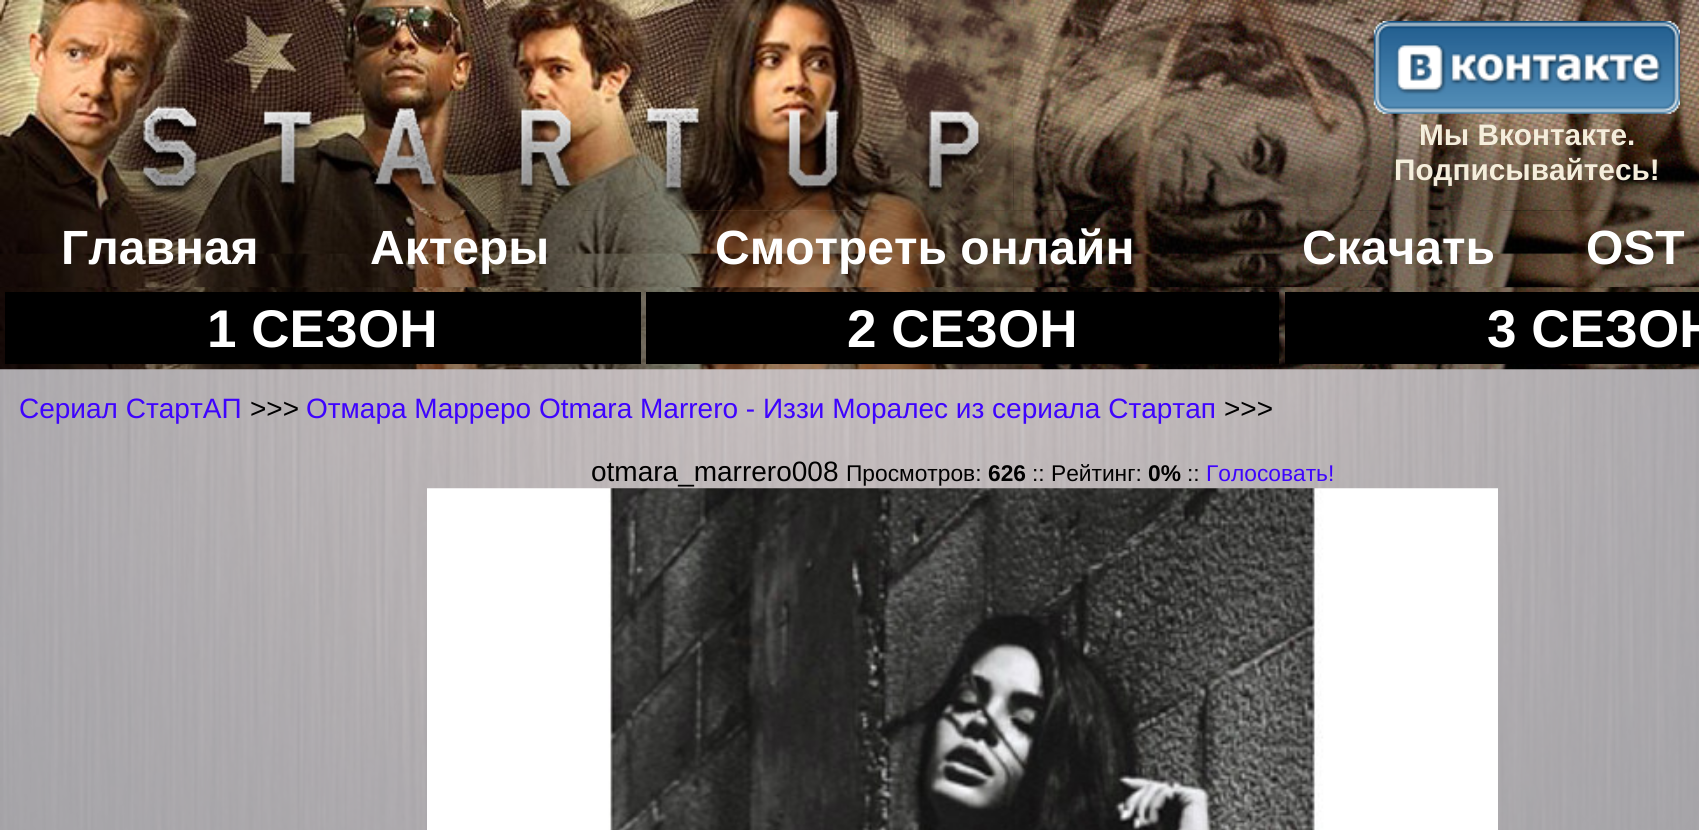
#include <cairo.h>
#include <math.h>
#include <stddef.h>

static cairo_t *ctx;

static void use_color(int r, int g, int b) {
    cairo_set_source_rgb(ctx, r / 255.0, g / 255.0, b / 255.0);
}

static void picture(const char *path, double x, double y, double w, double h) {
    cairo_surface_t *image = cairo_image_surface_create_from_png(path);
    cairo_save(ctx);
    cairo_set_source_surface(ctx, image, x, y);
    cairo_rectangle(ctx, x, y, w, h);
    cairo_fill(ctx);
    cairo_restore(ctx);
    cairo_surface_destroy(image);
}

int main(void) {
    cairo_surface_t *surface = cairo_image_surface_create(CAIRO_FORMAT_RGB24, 1699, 830);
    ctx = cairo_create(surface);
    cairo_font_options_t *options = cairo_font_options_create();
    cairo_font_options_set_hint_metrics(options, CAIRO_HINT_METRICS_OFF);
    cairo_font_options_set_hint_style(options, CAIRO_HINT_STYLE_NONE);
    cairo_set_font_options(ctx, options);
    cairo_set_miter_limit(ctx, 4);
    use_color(255, 255, 255);
    cairo_paint(ctx);
    picture("img1.png", 0, 369, 1699, 461);
    picture("img2.png", 1013, 0, 1, 210);
    picture("img4.png", 1013, 0, 686, 210);
    picture("img3.png", 0, 0, 1014, 210);
    picture("img5.png", 1373, 21, 307, 93);
    cairo_select_font_face(ctx, "Liberation Sans", CAIRO_FONT_SLANT_NORMAL, CAIRO_FONT_WEIGHT_BOLD);
    cairo_set_font_size(ctx, 29.75);
    use_color(245, 238, 220);
    cairo_move_to(ctx, 1419, 145);
    cairo_show_text(ctx, "Мы Вконтакте.");
    cairo_move_to(ctx, 1394, 180);
    cairo_show_text(ctx, "Подписывайтесь!");
    picture("img6.png", 0, 210, 1699, 77);
    cairo_set_font_size(ctx, 48);
    use_color(255, 255, 255);
    cairo_move_to(ctx, 61, 264);
    cairo_show_text(ctx, "Главная");
    cairo_move_to(ctx, 370, 264);
    cairo_show_text(ctx, "Актеры");
    cairo_move_to(ctx, 715, 264);
    cairo_show_text(ctx, "Смотреть онлайн");
    cairo_move_to(ctx, 1302, 264);
    cairo_show_text(ctx, "Скачать");
    cairo_move_to(ctx, 1586, 264);
    cairo_show_text(ctx, "OST");
    picture("img7.png", 0, 287, 1699, 83);
    use_color(0, 0, 0);
    cairo_rectangle(ctx, 5, 292, 636, 72);
    cairo_fill(ctx);
    cairo_set_font_size(ctx, 53);
    use_color(255, 255, 255);
    cairo_move_to(ctx, 207, 347);
    cairo_show_text(ctx, "1 СЕЗОН");
    use_color(0, 0, 0);
    cairo_rectangle(ctx, 646, 292, 633, 72);
    cairo_fill(ctx);
    use_color(255, 255, 255);
    cairo_move_to(ctx, 847, 347);
    cairo_show_text(ctx, "2 СЕЗОН");
    use_color(0, 0, 0);
    cairo_rectangle(ctx, 1285, 292, 414, 72);
    cairo_fill(ctx);
    use_color(255, 255, 255);
    cairo_move_to(ctx, 1487, 347);
    cairo_show_text(ctx, "3 СЕЗОН");
    cairo_select_font_face(ctx, "Liberation Sans", CAIRO_FONT_SLANT_NORMAL, CAIRO_FONT_WEIGHT_NORMAL);
    cairo_set_font_size(ctx, 28);
    use_color(62, 3, 254);
    cairo_move_to(ctx, 19, 418);
    cairo_show_text(ctx, "Сериал СтартАП");
    use_color(0, 0, 0);
    cairo_move_to(ctx, 250, 418);
    cairo_show_text(ctx, ">>>");
    use_color(62, 3, 254);
    cairo_move_to(ctx, 306, 418);
    cairo_show_text(ctx, "Отмара Марреро Otmara Marrero - Иззи Моралес из сериала Стартап");
    use_color(0, 0, 0);
    cairo_move_to(ctx, 1224, 418);
    cairo_show_text(ctx, ">>>");
    cairo_move_to(ctx, 591, 481);
    cairo_show_text(ctx, "otmara_marrero008");
    cairo_set_font_size(ctx, 22.75);
    cairo_move_to(ctx, 846, 481);
    cairo_show_text(ctx, "Просмотров:");
    cairo_select_font_face(ctx, "Liberation Sans", CAIRO_FONT_SLANT_NORMAL, CAIRO_FONT_WEIGHT_BOLD);
    cairo_move_to(ctx, 988, 481);
    cairo_show_text(ctx, "626");
    cairo_select_font_face(ctx, "Liberation Sans", CAIRO_FONT_SLANT_NORMAL, CAIRO_FONT_WEIGHT_NORMAL);
    cairo_move_to(ctx, 1032, 481);
    cairo_show_text(ctx, ":: Рейтинг:");
    cairo_select_font_face(ctx, "Liberation Sans", CAIRO_FONT_SLANT_NORMAL, CAIRO_FONT_WEIGHT_BOLD);
    cairo_move_to(ctx, 1148, 481);
    cairo_show_text(ctx, "0%");
    cairo_select_font_face(ctx, "Liberation Sans", CAIRO_FONT_SLANT_NORMAL, CAIRO_FONT_WEIGHT_NORMAL);
    cairo_move_to(ctx, 1187, 481);
    cairo_show_text(ctx, "::");
    use_color(62, 3, 254);
    cairo_move_to(ctx, 1206, 481);
    cairo_show_text(ctx, "Голосовать!");
    picture("img8.png", 427, 488, 1071, 342);
    cairo_surface_write_to_png(surface, "result.png");
    cairo_font_options_destroy(options);
    cairo_destroy(ctx);
    cairo_surface_destroy(surface);
    return 0;
}
